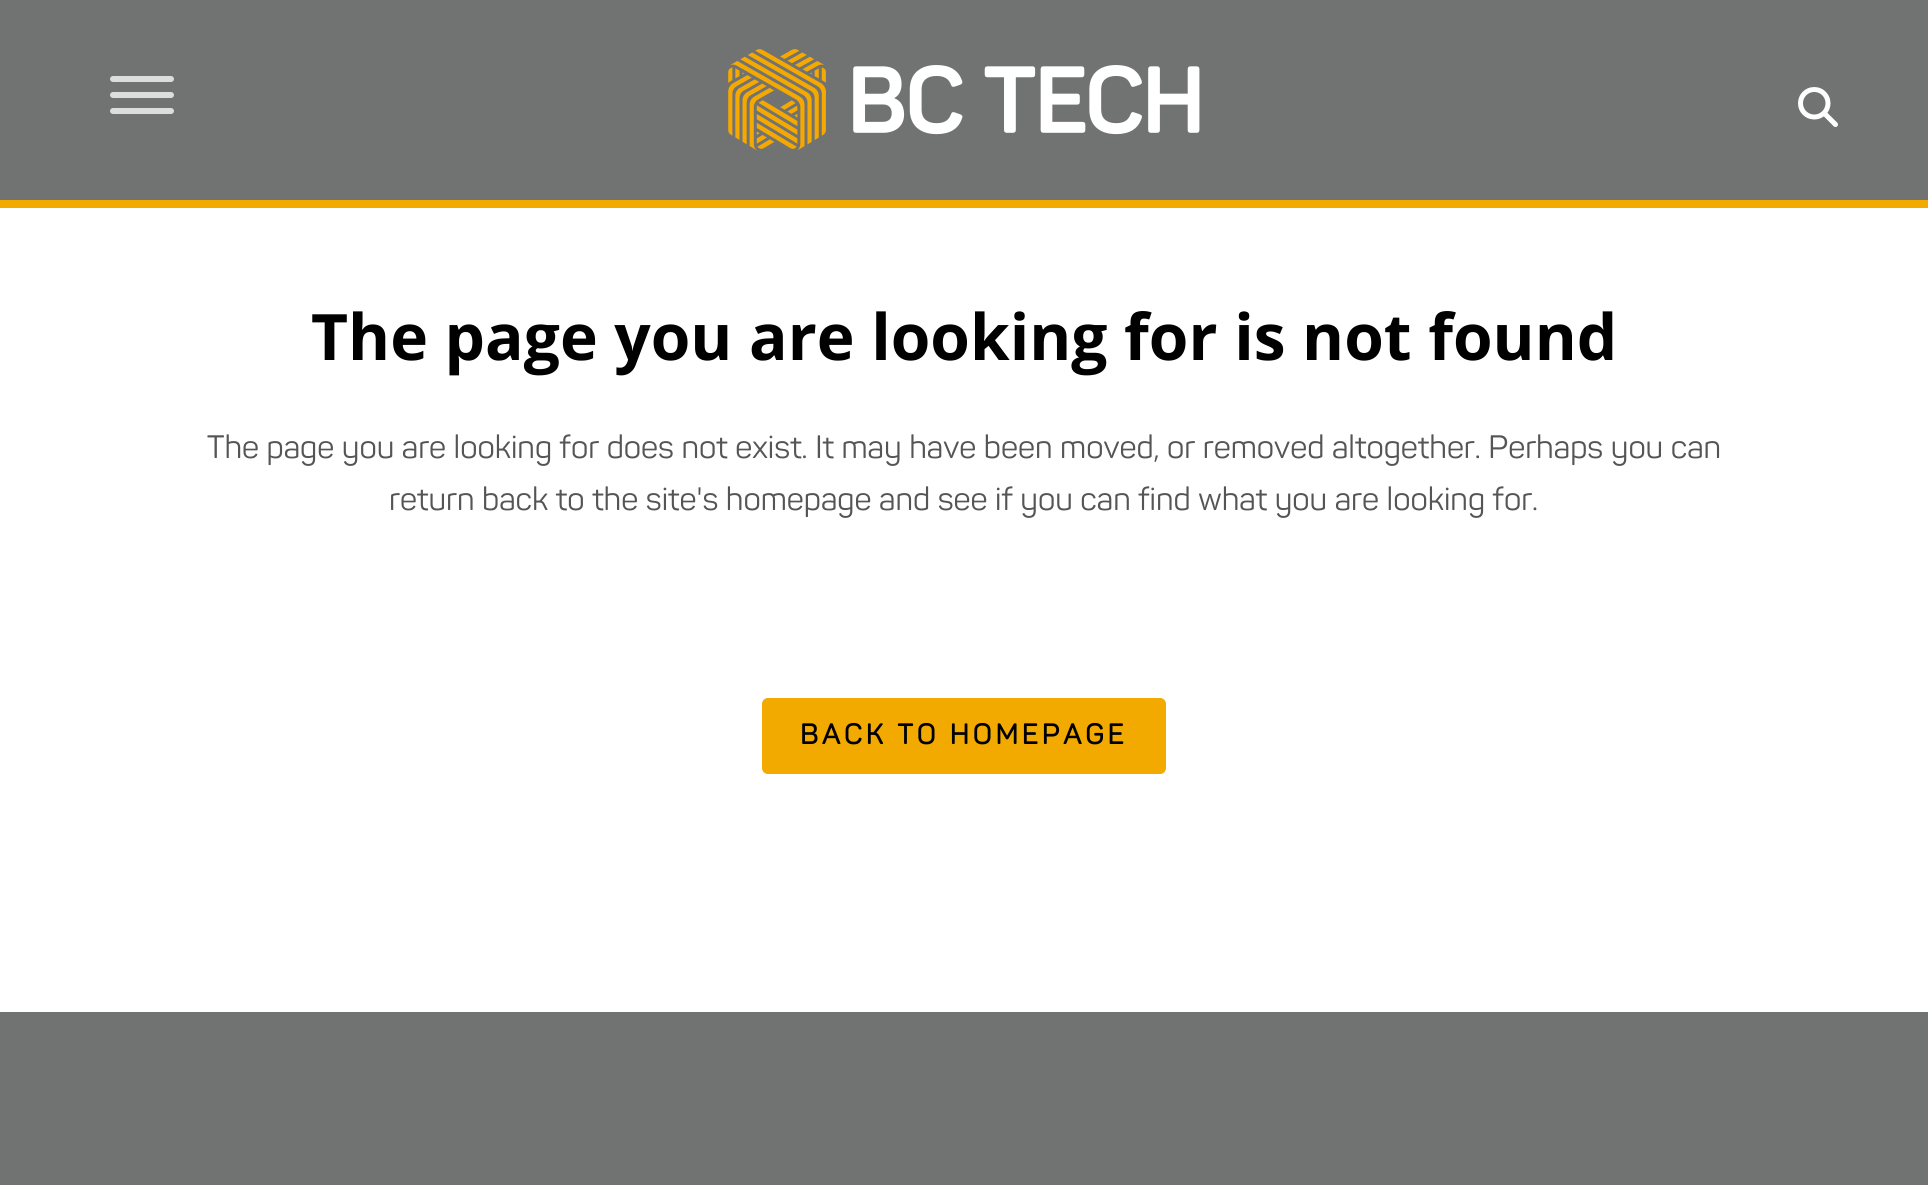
#include <cairo.h>
#include <math.h>
#include <stddef.h>

static cairo_t *ctx;

static void use_color(int r, int g, int b) {
    cairo_set_source_rgb(ctx, r / 255.0, g / 255.0, b / 255.0);
}

static void spaced_text(double x, double y, const char *s, double letter, double word) {
    cairo_move_to(ctx, x, y);
    while (*s) {
        char ch[5] = {0};
        int n = 0;
        do ch[n++] = *s++; while ((*s & 0xC0) == 0x80);
        cairo_show_text(ctx, ch);
        cairo_rel_move_to(ctx, letter + word * (*ch == ' '), 0);
    }
}

static void round_rect(double x, double y, double w, double h, double r) {
    cairo_new_sub_path(ctx);
    cairo_arc(ctx, x + w - r, y + h - r, r, 0, M_PI / 2);
    cairo_arc(ctx, x + r, y + h - r, r, M_PI / 2, M_PI);
    cairo_arc(ctx, x + r, y + r, r, M_PI, 1.5 * M_PI);
    cairo_arc(ctx, x + w - r, y + r, r, 1.5 * M_PI, 2 * M_PI);
    cairo_close_path(ctx);
}

static void picture(const char *path, double x, double y, double w, double h) {
    cairo_surface_t *image = cairo_image_surface_create_from_png(path);
    cairo_save(ctx);
    cairo_set_source_surface(ctx, image, x, y);
    cairo_rectangle(ctx, x, y, w, h);
    cairo_fill(ctx);
    cairo_restore(ctx);
    cairo_surface_destroy(image);
}

int main(void) {
    cairo_surface_t *surface = cairo_image_surface_create(CAIRO_FORMAT_RGB24, 1928, 1185);
    ctx = cairo_create(surface);
    cairo_font_options_t *options = cairo_font_options_create();
    cairo_font_options_set_hint_metrics(options, CAIRO_HINT_METRICS_OFF);
    cairo_font_options_set_hint_style(options, CAIRO_HINT_STYLE_NONE);
    cairo_set_font_options(ctx, options);
    cairo_set_miter_limit(ctx, 4);
    use_color(255, 255, 255);
    cairo_paint(ctx);
    use_color(112, 115, 114);
    cairo_rectangle(ctx, 0, 0, 1928, 200);
    cairo_fill(ctx);
    use_color(242, 169, 0);
    cairo_rectangle(ctx, 0, 200, 1928, 8);
    cairo_fill(ctx);
    use_color(221, 221, 221);
    round_rect(110, 76, 64, 6, 3);
    cairo_fill(ctx);
    round_rect(110, 92, 64, 6, 3);
    cairo_fill(ctx);
    round_rect(110, 108, 64, 6, 3);
    cairo_fill(ctx);
    picture("img1.png", 728, 49, 472, 102);
    picture("img2.png", 1798, 87, 40, 40);
    cairo_select_font_face(ctx, "Open Sans", CAIRO_FONT_SLANT_NORMAL, CAIRO_FONT_WEIGHT_BOLD);
    cairo_set_font_size(ctx, 64);
    use_color(0, 0, 0);
    cairo_move_to(ctx, 311, 360);
    cairo_show_text(ctx, "The page you are looking for is not found");
    cairo_select_font_face(ctx, "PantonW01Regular", CAIRO_FONT_SLANT_NORMAL, CAIRO_FONT_WEIGHT_NORMAL);
    cairo_set_font_size(ctx, 32);
    use_color(85, 85, 85);
    cairo_move_to(ctx, 207, 458);
    cairo_show_text(ctx, "The page you are looking for does not exist. It may have been moved, or removed altogether. Perhaps you can");
    cairo_move_to(ctx, 389, 510);
    cairo_show_text(ctx, "return back to the site's homepage and see if you can find what you are looking for.");
    use_color(242, 169, 0);
    round_rect(763, 699, 402, 74, 5);
    cairo_fill_preserve(ctx);
    cairo_stroke(ctx);
    cairo_select_font_face(ctx, "PantonW01Regular", CAIRO_FONT_SLANT_NORMAL, CAIRO_FONT_WEIGHT_BOLD);
    cairo_set_font_size(ctx, 28);
    use_color(0, 0, 0);
    spaced_text(800, 744, "BACK TO HOMEPAGE", 4, 0);
    use_color(112, 115, 114);
    cairo_rectangle(ctx, 0, 1012, 1928, 173);
    cairo_fill(ctx);
    cairo_surface_write_to_png(surface, "result.png");
    cairo_font_options_destroy(options);
    cairo_destroy(ctx);
    cairo_surface_destroy(surface);
    return 0;
}
